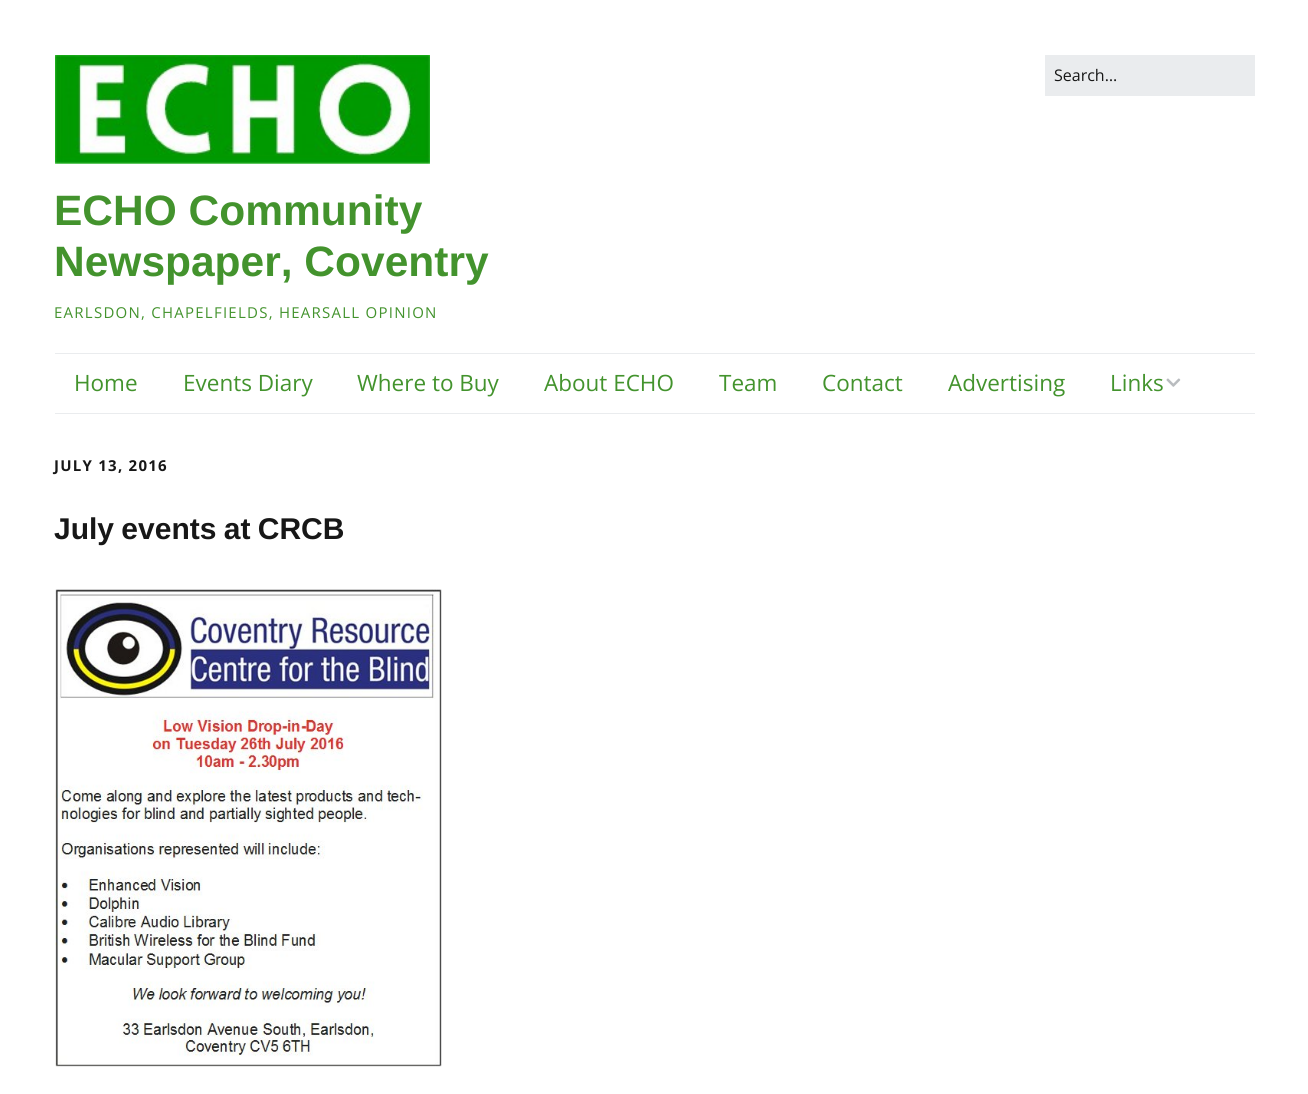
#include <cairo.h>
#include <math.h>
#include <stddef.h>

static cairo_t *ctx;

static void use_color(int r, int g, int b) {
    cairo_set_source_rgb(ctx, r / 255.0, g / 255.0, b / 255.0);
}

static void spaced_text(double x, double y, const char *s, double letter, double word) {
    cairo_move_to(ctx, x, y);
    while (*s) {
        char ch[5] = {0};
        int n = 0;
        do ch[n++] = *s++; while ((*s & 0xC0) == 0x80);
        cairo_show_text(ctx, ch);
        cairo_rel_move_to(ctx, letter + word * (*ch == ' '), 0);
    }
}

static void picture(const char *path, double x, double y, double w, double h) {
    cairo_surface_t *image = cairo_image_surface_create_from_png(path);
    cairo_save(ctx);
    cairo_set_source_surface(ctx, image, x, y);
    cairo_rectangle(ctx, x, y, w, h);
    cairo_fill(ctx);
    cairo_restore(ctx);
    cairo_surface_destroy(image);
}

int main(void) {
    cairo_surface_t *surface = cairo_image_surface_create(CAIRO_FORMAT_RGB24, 1308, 1094);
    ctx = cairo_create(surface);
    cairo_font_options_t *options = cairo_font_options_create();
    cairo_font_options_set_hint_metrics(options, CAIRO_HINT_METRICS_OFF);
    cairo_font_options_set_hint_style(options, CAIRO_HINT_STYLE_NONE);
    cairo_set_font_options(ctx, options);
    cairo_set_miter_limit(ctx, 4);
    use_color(255, 255, 255);
    cairo_paint(ctx);
    use_color(234, 236, 238);
    cairo_rectangle(ctx, 1045, 55, 210, 41);
    cairo_fill(ctx);
    cairo_select_font_face(ctx, "Open Sans", CAIRO_FONT_SLANT_NORMAL, CAIRO_FONT_WEIGHT_NORMAL);
    cairo_set_font_size(ctx, 16);
    use_color(23, 23, 23);
    cairo_move_to(ctx, 1054, 81);
    cairo_show_text(ctx, "Search…");
    picture("img1.png", 55, 55, 375, 109);
    cairo_select_font_face(ctx, "Liberation Sans", CAIRO_FONT_SLANT_NORMAL, CAIRO_FONT_WEIGHT_BOLD);
    cairo_set_font_size(ctx, 42.5);
    use_color(67, 147, 45);
    cairo_move_to(ctx, 54, 225);
    cairo_show_text(ctx, "ECHO Community");
    cairo_move_to(ctx, 54, 276);
    cairo_show_text(ctx, "Newspaper, Coventry");
    cairo_select_font_face(ctx, "Open Sans", CAIRO_FONT_SLANT_NORMAL, CAIRO_FONT_WEIGHT_NORMAL);
    cairo_set_font_size(ctx, 15);
    spaced_text(54, 318, "EARLSDON, CHAPELFIELDS, HEARSALL OPINION", 1.25, 0);
    use_color(234, 236, 238);
    cairo_rectangle(ctx, 55, 353, 1200, 1);
    cairo_fill(ctx);
    cairo_rectangle(ctx, 55, 413, 1200, 1);
    cairo_fill(ctx);
    cairo_set_font_size(ctx, 22.5);
    use_color(67, 147, 45);
    cairo_move_to(ctx, 74, 391);
    cairo_show_text(ctx, "Home");
    cairo_move_to(ctx, 183, 391);
    cairo_show_text(ctx, "Events Diary");
    cairo_move_to(ctx, 357, 391);
    cairo_show_text(ctx, "Where to Buy");
    cairo_move_to(ctx, 544, 391);
    cairo_show_text(ctx, "About ECHO");
    cairo_move_to(ctx, 719, 391);
    cairo_show_text(ctx, "Team");
    cairo_move_to(ctx, 822, 391);
    cairo_show_text(ctx, "Contact");
    cairo_move_to(ctx, 948, 391);
    cairo_show_text(ctx, "Advertising");
    cairo_move_to(ctx, 1110, 391);
    cairo_show_text(ctx, "Links");
    picture("img2.png", 1166, 378, 15, 9);
    cairo_select_font_face(ctx, "Open Sans", CAIRO_FONT_SLANT_NORMAL, CAIRO_FONT_WEIGHT_BOLD);
    cairo_set_font_size(ctx, 15);
    use_color(23, 23, 23);
    spaced_text(54, 471, "JULY 13, 2016", 1.25, 0);
    cairo_select_font_face(ctx, "Liberation Sans", CAIRO_FONT_SLANT_NORMAL, CAIRO_FONT_WEIGHT_BOLD);
    cairo_set_font_size(ctx, 30);
    spaced_text(54, 539, "July events at CRCB", 0, -1);
    picture("img3.png", 55, 589, 387, 478);
    cairo_surface_write_to_png(surface, "result.png");
    cairo_font_options_destroy(options);
    cairo_destroy(ctx);
    cairo_surface_destroy(surface);
    return 0;
}
